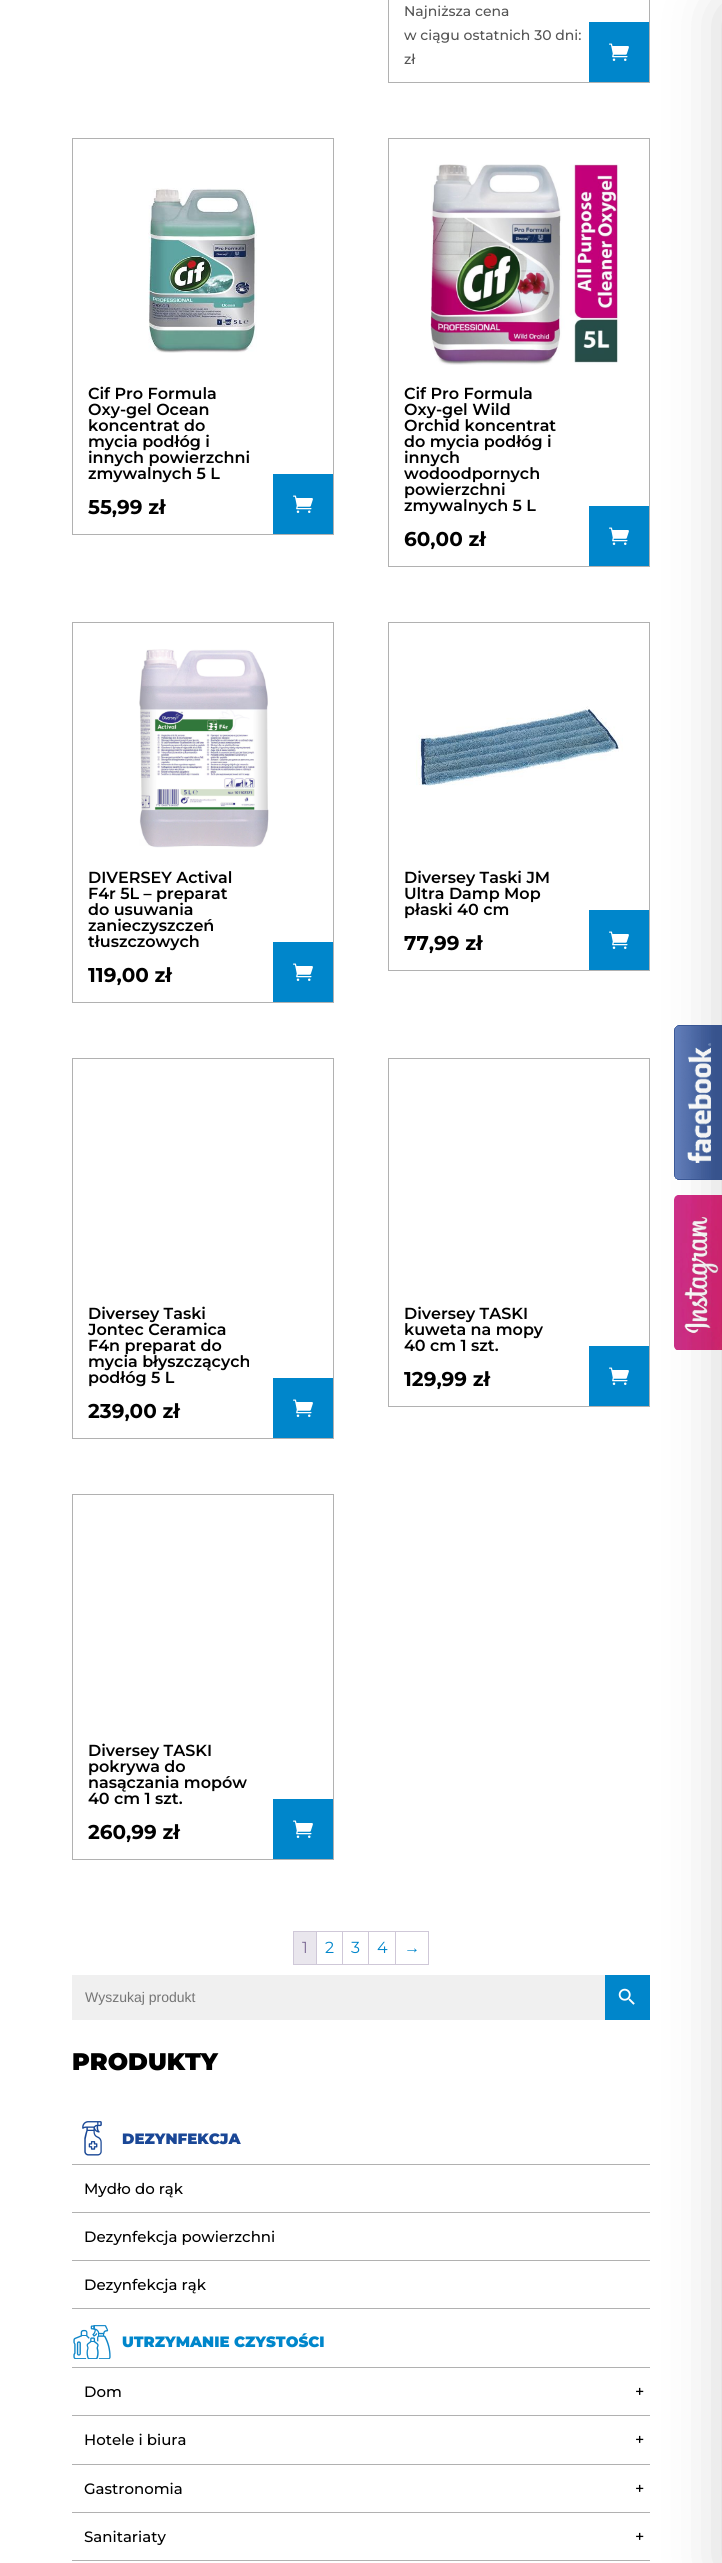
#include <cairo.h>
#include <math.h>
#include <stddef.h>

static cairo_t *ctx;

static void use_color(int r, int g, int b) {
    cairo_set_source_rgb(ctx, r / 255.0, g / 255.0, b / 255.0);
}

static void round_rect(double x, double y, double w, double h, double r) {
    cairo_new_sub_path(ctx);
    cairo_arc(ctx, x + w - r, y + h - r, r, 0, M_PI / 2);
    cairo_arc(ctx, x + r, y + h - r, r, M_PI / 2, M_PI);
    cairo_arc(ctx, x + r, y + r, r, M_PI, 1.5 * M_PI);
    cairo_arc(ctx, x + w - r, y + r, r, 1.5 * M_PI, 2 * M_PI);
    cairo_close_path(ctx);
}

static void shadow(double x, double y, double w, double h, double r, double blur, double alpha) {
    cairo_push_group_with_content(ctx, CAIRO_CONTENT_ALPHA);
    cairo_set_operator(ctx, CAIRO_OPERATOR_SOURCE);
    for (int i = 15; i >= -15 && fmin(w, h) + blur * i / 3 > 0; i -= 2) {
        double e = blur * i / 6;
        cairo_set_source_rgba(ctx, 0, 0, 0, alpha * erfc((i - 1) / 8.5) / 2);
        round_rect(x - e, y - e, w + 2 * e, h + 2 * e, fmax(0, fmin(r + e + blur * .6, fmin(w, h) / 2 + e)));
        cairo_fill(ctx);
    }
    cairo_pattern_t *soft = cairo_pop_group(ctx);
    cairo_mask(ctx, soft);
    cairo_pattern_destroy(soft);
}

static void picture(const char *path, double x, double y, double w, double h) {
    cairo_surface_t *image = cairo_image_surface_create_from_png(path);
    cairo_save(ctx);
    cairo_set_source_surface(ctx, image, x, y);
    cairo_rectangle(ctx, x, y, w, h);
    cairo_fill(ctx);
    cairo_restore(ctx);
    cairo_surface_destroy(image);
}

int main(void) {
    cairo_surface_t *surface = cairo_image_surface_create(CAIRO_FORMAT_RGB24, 722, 2563);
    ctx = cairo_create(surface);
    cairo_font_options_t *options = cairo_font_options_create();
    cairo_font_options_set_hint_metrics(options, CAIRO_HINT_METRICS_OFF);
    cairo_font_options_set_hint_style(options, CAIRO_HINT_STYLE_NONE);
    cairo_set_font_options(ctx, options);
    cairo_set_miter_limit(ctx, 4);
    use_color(255, 255, 255);
    cairo_paint(ctx);
    cairo_rectangle(ctx, 388.5, -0.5, 261, 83);
    use_color(177, 177, 177);
    cairo_set_line_width(ctx, 1);
    cairo_stroke(ctx);
    cairo_select_font_face(ctx, "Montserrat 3 Thin", CAIRO_FONT_SLANT_NORMAL, CAIRO_FONT_WEIGHT_NORMAL);
    cairo_set_font_size(ctx, 14);
    use_color(85, 85, 85);
    cairo_move_to(ctx, 404, 16);
    cairo_show_text(ctx, "Najniższa cena");
    cairo_move_to(ctx, 404, 40);
    cairo_show_text(ctx, "w ciągu ostatnich 30 dni:");
    cairo_move_to(ctx, 404, 64);
    cairo_show_text(ctx, "zł");
    use_color(0, 134, 203);
    cairo_rectangle(ctx, 589, 22, 60, 60);
    cairo_fill(ctx);
    picture("img1.png", 609, 43, 20, 18);
    cairo_rectangle(ctx, 72.5, 138.5, 261, 396);
    use_color(177, 177, 177);
    cairo_stroke(ctx);
    picture("img2.png", 148, 188, 109, 165);
    cairo_select_font_face(ctx, "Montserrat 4 Thin", CAIRO_FONT_SLANT_NORMAL, CAIRO_FONT_WEIGHT_NORMAL);
    cairo_set_font_size(ctx, 16);
    use_color(0, 0, 0);
    cairo_move_to(ctx, 88, 399);
    cairo_show_text(ctx, "Cif Pro Formula");
    cairo_move_to(ctx, 88, 415);
    cairo_show_text(ctx, "Oxy-gel Ocean");
    cairo_move_to(ctx, 88, 431);
    cairo_show_text(ctx, "koncentrat do");
    cairo_move_to(ctx, 88, 447);
    cairo_show_text(ctx, "mycia podłóg i");
    cairo_move_to(ctx, 88, 463);
    cairo_show_text(ctx, "innych powierzchni");
    cairo_move_to(ctx, 88, 479);
    cairo_show_text(ctx, "zmywalnych 5 L");
    cairo_select_font_face(ctx, "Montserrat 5 Thin", CAIRO_FONT_SLANT_NORMAL, CAIRO_FONT_WEIGHT_NORMAL);
    cairo_set_font_size(ctx, 20);
    cairo_move_to(ctx, 88, 514);
    cairo_show_text(ctx, "55,99 zł");
    use_color(0, 134, 203);
    cairo_rectangle(ctx, 273, 474, 60, 60);
    cairo_fill(ctx);
    picture("img1.png", 293, 495, 20, 18);
    cairo_rectangle(ctx, 388.5, 138.5, 261, 428);
    use_color(177, 177, 177);
    cairo_stroke(ctx);
    picture("img3.png", 430, 164, 190, 201);
    cairo_select_font_face(ctx, "Montserrat 4 Thin", CAIRO_FONT_SLANT_NORMAL, CAIRO_FONT_WEIGHT_NORMAL);
    cairo_set_font_size(ctx, 16);
    use_color(0, 0, 0);
    cairo_move_to(ctx, 404, 399);
    cairo_show_text(ctx, "Cif Pro Formula");
    cairo_move_to(ctx, 404, 415);
    cairo_show_text(ctx, "Oxy-gel Wild");
    cairo_move_to(ctx, 404, 431);
    cairo_show_text(ctx, "Orchid koncentrat");
    cairo_move_to(ctx, 404, 447);
    cairo_show_text(ctx, "do mycia podłóg i");
    cairo_move_to(ctx, 404, 463);
    cairo_show_text(ctx, "innych");
    cairo_move_to(ctx, 404, 479);
    cairo_show_text(ctx, "wodoodpornych");
    cairo_move_to(ctx, 404, 495);
    cairo_show_text(ctx, "powierzchni");
    cairo_move_to(ctx, 404, 511);
    cairo_show_text(ctx, "zmywalnych 5 L");
    cairo_select_font_face(ctx, "Montserrat 5 Thin", CAIRO_FONT_SLANT_NORMAL, CAIRO_FONT_WEIGHT_NORMAL);
    cairo_set_font_size(ctx, 20);
    cairo_move_to(ctx, 404, 546);
    cairo_show_text(ctx, "60,00 zł");
    use_color(0, 134, 203);
    cairo_rectangle(ctx, 589, 506, 60, 60);
    cairo_fill(ctx);
    picture("img1.png", 609, 527, 20, 18);
    cairo_rectangle(ctx, 72.5, 622.5, 261, 380);
    use_color(177, 177, 177);
    cairo_stroke(ctx);
    picture("img4.png", 139, 649, 130, 199);
    cairo_select_font_face(ctx, "Montserrat 4 Thin", CAIRO_FONT_SLANT_NORMAL, CAIRO_FONT_WEIGHT_NORMAL);
    cairo_set_font_size(ctx, 16);
    use_color(0, 0, 0);
    cairo_move_to(ctx, 88, 883);
    cairo_show_text(ctx, "DIVERSEY Actival");
    cairo_move_to(ctx, 88, 899);
    cairo_show_text(ctx, "F4r 5L – preparat");
    cairo_move_to(ctx, 88, 915);
    cairo_show_text(ctx, "do usuwania");
    cairo_move_to(ctx, 88, 931);
    cairo_show_text(ctx, "zanieczyszczeń");
    cairo_move_to(ctx, 88, 947);
    cairo_show_text(ctx, "tłuszczowych");
    cairo_select_font_face(ctx, "Montserrat 5 Thin", CAIRO_FONT_SLANT_NORMAL, CAIRO_FONT_WEIGHT_NORMAL);
    cairo_set_font_size(ctx, 20);
    cairo_move_to(ctx, 88, 982);
    cairo_show_text(ctx, "119,00 zł");
    use_color(0, 134, 203);
    cairo_rectangle(ctx, 273, 942, 60, 60);
    cairo_fill(ctx);
    picture("img1.png", 293, 963, 20, 18);
    cairo_rectangle(ctx, 388.5, 622.5, 261, 348);
    use_color(177, 177, 177);
    cairo_stroke(ctx);
    picture("img5.png", 416, 706, 207, 80);
    cairo_select_font_face(ctx, "Montserrat 4 Thin", CAIRO_FONT_SLANT_NORMAL, CAIRO_FONT_WEIGHT_NORMAL);
    cairo_set_font_size(ctx, 16);
    use_color(0, 0, 0);
    cairo_move_to(ctx, 404, 883);
    cairo_show_text(ctx, "Diversey Taski JM");
    cairo_move_to(ctx, 404, 899);
    cairo_show_text(ctx, "Ultra Damp Mop");
    cairo_move_to(ctx, 404, 915);
    cairo_show_text(ctx, "płaski 40 cm");
    cairo_select_font_face(ctx, "Montserrat 5 Thin", CAIRO_FONT_SLANT_NORMAL, CAIRO_FONT_WEIGHT_NORMAL);
    cairo_set_font_size(ctx, 20);
    cairo_move_to(ctx, 404, 950);
    cairo_show_text(ctx, "77,99 zł");
    use_color(0, 134, 203);
    cairo_rectangle(ctx, 589, 910, 60, 60);
    cairo_fill(ctx);
    picture("img1.png", 609, 931, 20, 18);
    cairo_rectangle(ctx, 72.5, 1058.5, 261, 380);
    use_color(177, 177, 177);
    cairo_stroke(ctx);
    cairo_select_font_face(ctx, "Montserrat 4 Thin", CAIRO_FONT_SLANT_NORMAL, CAIRO_FONT_WEIGHT_NORMAL);
    cairo_set_font_size(ctx, 16);
    use_color(0, 0, 0);
    cairo_move_to(ctx, 88, 1319);
    cairo_show_text(ctx, "Diversey Taski");
    cairo_move_to(ctx, 88, 1335);
    cairo_show_text(ctx, "Jontec Ceramica");
    cairo_move_to(ctx, 88, 1351);
    cairo_show_text(ctx, "F4n preparat do");
    cairo_move_to(ctx, 88, 1367);
    cairo_show_text(ctx, "mycia błyszczących");
    cairo_move_to(ctx, 88, 1383);
    cairo_show_text(ctx, "podłóg 5 L");
    cairo_select_font_face(ctx, "Montserrat 5 Thin", CAIRO_FONT_SLANT_NORMAL, CAIRO_FONT_WEIGHT_NORMAL);
    cairo_set_font_size(ctx, 20);
    cairo_move_to(ctx, 88, 1418);
    cairo_show_text(ctx, "239,00 zł");
    use_color(0, 134, 203);
    cairo_rectangle(ctx, 273, 1378, 60, 60);
    cairo_fill(ctx);
    picture("img1.png", 293, 1399, 20, 18);
    cairo_rectangle(ctx, 388.5, 1058.5, 261, 348);
    use_color(177, 177, 177);
    cairo_stroke(ctx);
    cairo_select_font_face(ctx, "Montserrat 4 Thin", CAIRO_FONT_SLANT_NORMAL, CAIRO_FONT_WEIGHT_NORMAL);
    cairo_set_font_size(ctx, 16);
    use_color(0, 0, 0);
    cairo_move_to(ctx, 404, 1319);
    cairo_show_text(ctx, "Diversey TASKI");
    cairo_move_to(ctx, 404, 1335);
    cairo_show_text(ctx, "kuweta na mopy");
    cairo_move_to(ctx, 404, 1351);
    cairo_show_text(ctx, "40 cm 1 szt.");
    cairo_select_font_face(ctx, "Montserrat 5 Thin", CAIRO_FONT_SLANT_NORMAL, CAIRO_FONT_WEIGHT_NORMAL);
    cairo_set_font_size(ctx, 20);
    cairo_move_to(ctx, 404, 1386);
    cairo_show_text(ctx, "129,99 zł");
    use_color(0, 134, 203);
    cairo_rectangle(ctx, 589, 1346, 60, 60);
    cairo_fill(ctx);
    picture("img1.png", 609, 1367, 20, 18);
    cairo_rectangle(ctx, 72.5, 1494.5, 261, 365);
    use_color(177, 177, 177);
    cairo_stroke(ctx);
    cairo_select_font_face(ctx, "Montserrat 4 Thin", CAIRO_FONT_SLANT_NORMAL, CAIRO_FONT_WEIGHT_NORMAL);
    cairo_set_font_size(ctx, 16);
    use_color(0, 0, 0);
    cairo_move_to(ctx, 88, 1756);
    cairo_show_text(ctx, "Diversey TASKI");
    cairo_move_to(ctx, 88, 1772);
    cairo_show_text(ctx, "pokrywa do");
    cairo_move_to(ctx, 88, 1788);
    cairo_show_text(ctx, "nasączania mopów");
    cairo_move_to(ctx, 88, 1804);
    cairo_show_text(ctx, "40 cm 1 szt.");
    cairo_select_font_face(ctx, "Montserrat 5 Thin", CAIRO_FONT_SLANT_NORMAL, CAIRO_FONT_WEIGHT_NORMAL);
    cairo_set_font_size(ctx, 20);
    cairo_move_to(ctx, 88, 1839);
    cairo_show_text(ctx, "260,99 zł");
    use_color(0, 134, 203);
    cairo_rectangle(ctx, 273, 1799, 60, 60);
    cairo_fill(ctx);
    picture("img1.png", 293, 1820, 20, 18);
    use_color(207, 200, 216);
    cairo_rectangle(ctx, 293, 1931, 136, 1);
    cairo_fill(ctx);
    cairo_rectangle(ctx, 293, 1964, 136, 1);
    cairo_fill(ctx);
    cairo_rectangle(ctx, 293, 1931, 1, 34);
    cairo_fill(ctx);
    cairo_rectangle(ctx, 316, 1932, 1, 32);
    cairo_fill(ctx);
    use_color(233, 230, 237);
    cairo_rectangle(ctx, 294, 1932, 22, 32);
    cairo_fill(ctx);
    cairo_select_font_face(ctx, "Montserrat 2 Thin", CAIRO_FONT_SLANT_NORMAL, CAIRO_FONT_WEIGHT_NORMAL);
    cairo_set_font_size(ctx, 16);
    use_color(129, 111, 152);
    cairo_move_to(ctx, 302, 1953);
    cairo_show_text(ctx, "1");
    use_color(207, 200, 216);
    cairo_rectangle(ctx, 342, 1932, 1, 32);
    cairo_fill(ctx);
    use_color(0, 134, 203);
    cairo_move_to(ctx, 325, 1953);
    cairo_show_text(ctx, "2");
    use_color(207, 200, 216);
    cairo_rectangle(ctx, 368, 1932, 1, 32);
    cairo_fill(ctx);
    use_color(0, 134, 203);
    cairo_move_to(ctx, 351, 1953);
    cairo_show_text(ctx, "3");
    use_color(207, 200, 216);
    cairo_rectangle(ctx, 395, 1932, 1, 32);
    cairo_fill(ctx);
    use_color(0, 134, 203);
    cairo_move_to(ctx, 377, 1953);
    cairo_show_text(ctx, "4");
    use_color(207, 200, 216);
    cairo_rectangle(ctx, 428, 1932, 1, 32);
    cairo_fill(ctx);
    cairo_select_font_face(ctx, "Liberation Sans", CAIRO_FONT_SLANT_NORMAL, CAIRO_FONT_WEIGHT_NORMAL);
    use_color(0, 134, 203);
    cairo_move_to(ctx, 404, 1953);
    cairo_show_text(ctx, "→");
    use_color(240, 240, 240);
    cairo_rectangle(ctx, 72, 1975, 533, 45);
    cairo_fill(ctx);
    cairo_set_font_size(ctx, 14);
    use_color(117, 117, 117);
    cairo_move_to(ctx, 85, 2002);
    cairo_show_text(ctx, "Wyszukaj produkt");
    use_color(0, 134, 203);
    cairo_rectangle(ctx, 605, 1975, 45, 45);
    cairo_fill(ctx);
    picture("img6.png", 618, 1988, 17, 17);
    cairo_select_font_face(ctx, "Montserrat Thin", CAIRO_FONT_SLANT_NORMAL, CAIRO_FONT_WEIGHT_NORMAL);
    cairo_set_font_size(ctx, 24);
    use_color(0, 0, 0);
    cairo_move_to(ctx, 72, 2070);
    cairo_show_text(ctx, "PRODUKTY");
    picture("img7.png", 82, 2121, 20, 35);
    cairo_set_font_size(ctx, 15);
    use_color(26, 71, 150);
    cairo_move_to(ctx, 122, 2144);
    cairo_show_text(ctx, "DEZYNFEKCJA");
    use_color(177, 177, 177);
    cairo_rectangle(ctx, 72, 2164, 578, 1);
    cairo_fill(ctx);
    cairo_rectangle(ctx, 72, 2212, 578, 1);
    cairo_fill(ctx);
    cairo_select_font_face(ctx, "Montserrat 3 Thin", CAIRO_FONT_SLANT_NORMAL, CAIRO_FONT_WEIGHT_NORMAL);
    use_color(0, 0, 0);
    cairo_move_to(ctx, 84, 2194);
    cairo_show_text(ctx, "Mydło do rąk");
    use_color(177, 177, 177);
    cairo_rectangle(ctx, 72, 2260, 578, 1);
    cairo_fill(ctx);
    use_color(0, 0, 0);
    cairo_move_to(ctx, 84, 2242);
    cairo_show_text(ctx, "Dezynfekcja powierzchni");
    use_color(177, 177, 177);
    cairo_rectangle(ctx, 72, 2308, 578, 1);
    cairo_fill(ctx);
    use_color(0, 0, 0);
    cairo_move_to(ctx, 84, 2290);
    cairo_show_text(ctx, "Dezynfekcja rąk");
    picture("img8.png", 73, 2325, 38, 34);
    cairo_select_font_face(ctx, "Montserrat Thin", CAIRO_FONT_SLANT_NORMAL, CAIRO_FONT_WEIGHT_NORMAL);
    use_color(0, 134, 203);
    cairo_move_to(ctx, 122, 2347);
    cairo_show_text(ctx, "UTRZYMANIE CZYSTOŚCI");
    use_color(177, 177, 177);
    cairo_rectangle(ctx, 72, 2367, 578, 1);
    cairo_fill(ctx);
    cairo_rectangle(ctx, 72, 2415, 578, 1);
    cairo_fill(ctx);
    cairo_select_font_face(ctx, "Montserrat 3 Thin", CAIRO_FONT_SLANT_NORMAL, CAIRO_FONT_WEIGHT_NORMAL);
    use_color(0, 0, 0);
    cairo_move_to(ctx, 84, 2397);
    cairo_show_text(ctx, "Dom");
    cairo_set_font_size(ctx, 16);
    cairo_move_to(ctx, 635, 2397);
    cairo_show_text(ctx, "+");
    use_color(177, 177, 177);
    cairo_rectangle(ctx, 72, 2464, 578, 1);
    cairo_fill(ctx);
    cairo_set_font_size(ctx, 15);
    use_color(0, 0, 0);
    cairo_move_to(ctx, 84, 2445);
    cairo_show_text(ctx, "Hotele i biura");
    cairo_set_font_size(ctx, 16);
    cairo_move_to(ctx, 635, 2445);
    cairo_show_text(ctx, "+");
    use_color(177, 177, 177);
    cairo_rectangle(ctx, 72, 2512, 578, 1);
    cairo_fill(ctx);
    cairo_set_font_size(ctx, 15);
    use_color(0, 0, 0);
    cairo_move_to(ctx, 84, 2494);
    cairo_show_text(ctx, "Gastronomia");
    cairo_set_font_size(ctx, 16);
    cairo_move_to(ctx, 635, 2494);
    cairo_show_text(ctx, "+");
    use_color(177, 177, 177);
    cairo_rectangle(ctx, 72, 2560, 578, 1);
    cairo_fill(ctx);
    cairo_set_font_size(ctx, 15);
    use_color(0, 0, 0);
    cairo_move_to(ctx, 84, 2542);
    cairo_show_text(ctx, "Sanitariaty");
    cairo_set_font_size(ctx, 16);
    cairo_move_to(ctx, 635, 2542);
    cairo_show_text(ctx, "+");
    picture("img9.png", 674, 1025, 48, 155);
    picture("img10.png", 674, 1195, 48, 155);
    use_color(0, 0, 0);
    shadow(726, 10, 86, 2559, 0, 30, 0.2);
    cairo_surface_write_to_png(surface, "result.png");
    cairo_font_options_destroy(options);
    cairo_destroy(ctx);
    cairo_surface_destroy(surface);
    return 0;
}
